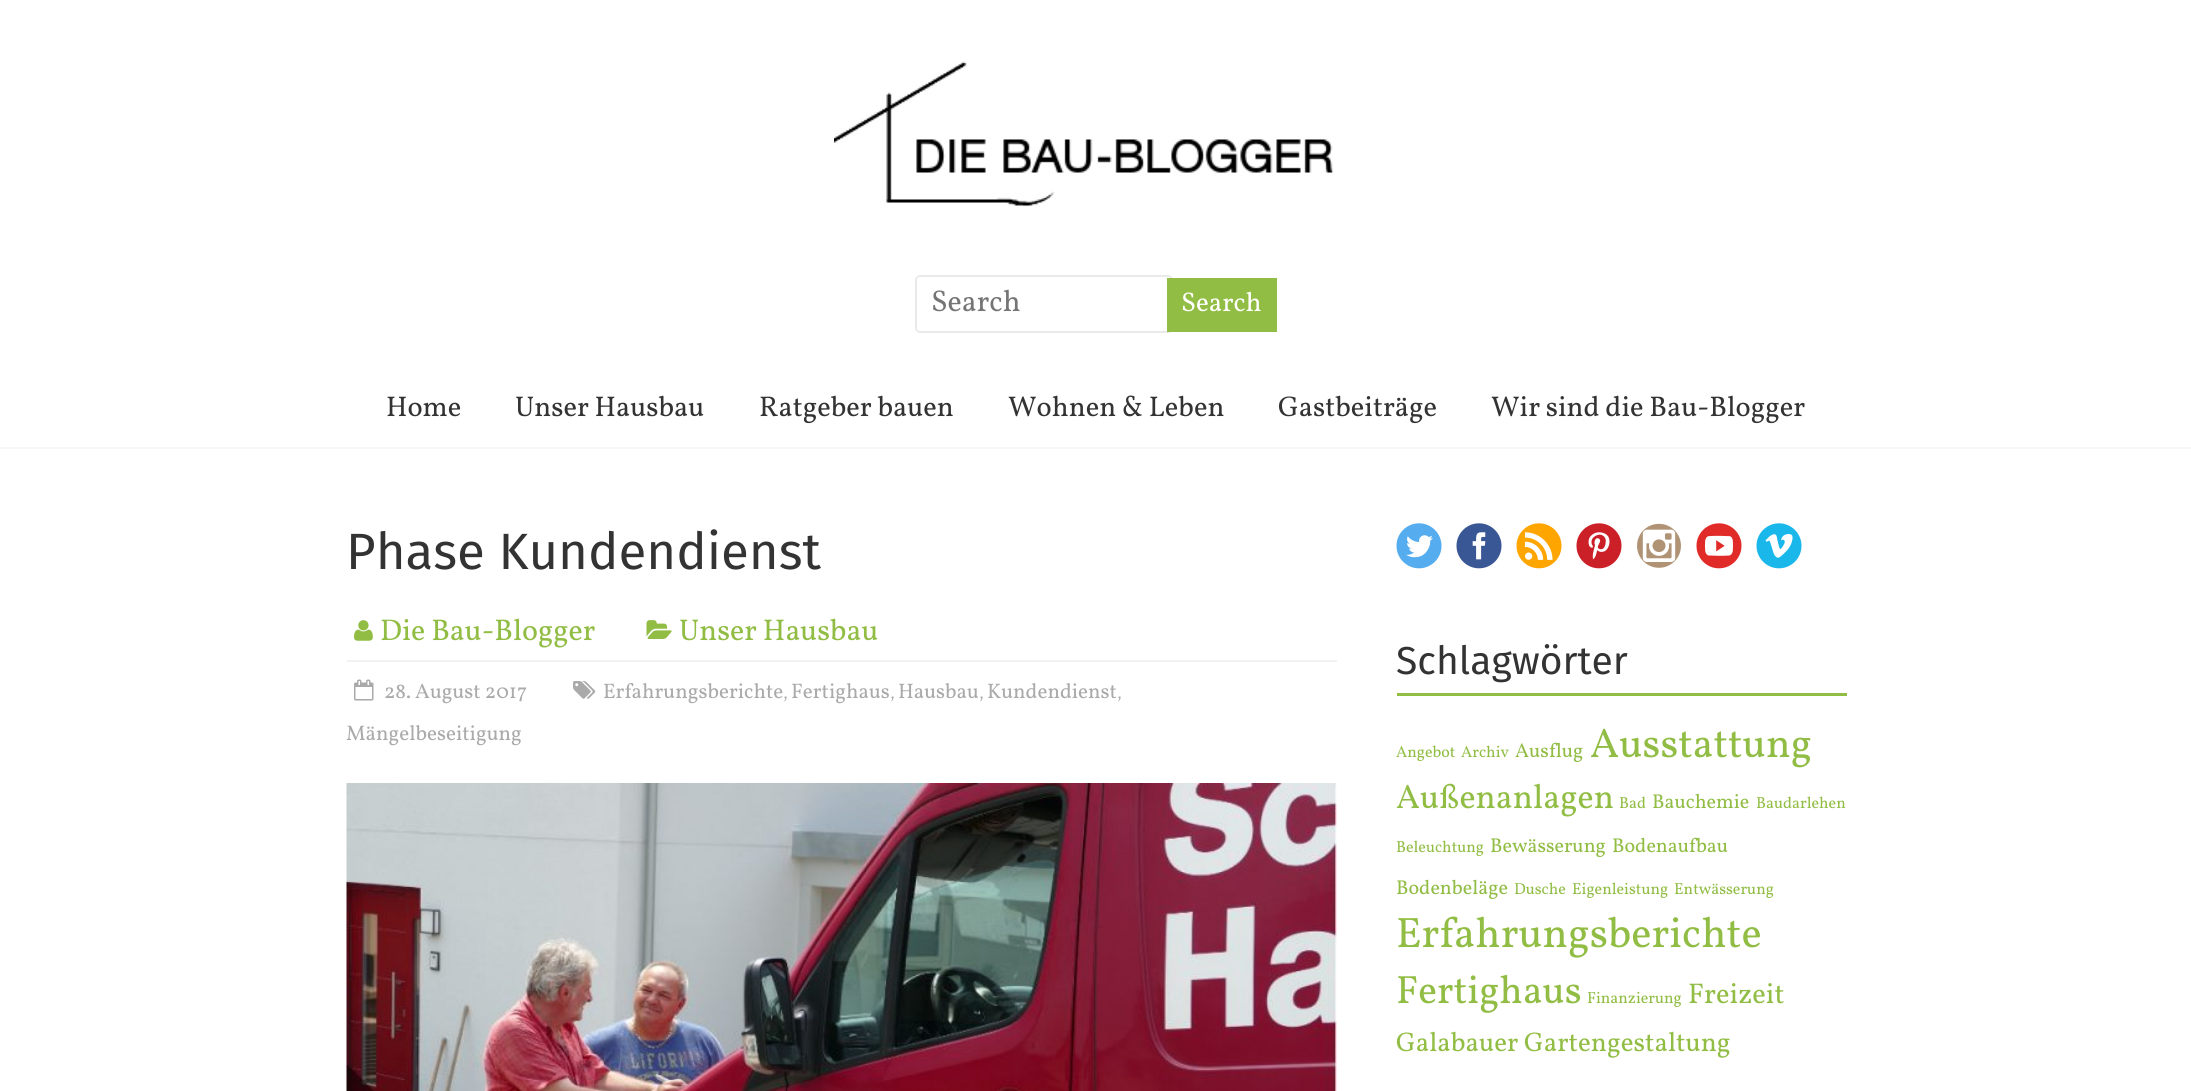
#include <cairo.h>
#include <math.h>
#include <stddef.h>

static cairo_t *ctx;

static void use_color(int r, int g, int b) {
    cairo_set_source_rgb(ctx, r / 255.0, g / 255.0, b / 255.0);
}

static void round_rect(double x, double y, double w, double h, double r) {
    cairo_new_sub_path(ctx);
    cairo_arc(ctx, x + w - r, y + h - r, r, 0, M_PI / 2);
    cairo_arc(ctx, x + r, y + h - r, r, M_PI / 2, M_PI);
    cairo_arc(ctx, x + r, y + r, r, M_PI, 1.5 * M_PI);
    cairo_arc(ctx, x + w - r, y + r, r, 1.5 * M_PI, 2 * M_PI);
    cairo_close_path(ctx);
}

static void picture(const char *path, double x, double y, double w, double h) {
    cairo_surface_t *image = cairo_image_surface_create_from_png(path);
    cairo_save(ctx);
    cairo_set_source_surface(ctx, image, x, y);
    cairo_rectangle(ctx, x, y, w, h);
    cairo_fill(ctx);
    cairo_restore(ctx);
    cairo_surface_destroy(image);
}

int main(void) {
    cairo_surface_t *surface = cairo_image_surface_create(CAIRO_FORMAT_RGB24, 2191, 1091);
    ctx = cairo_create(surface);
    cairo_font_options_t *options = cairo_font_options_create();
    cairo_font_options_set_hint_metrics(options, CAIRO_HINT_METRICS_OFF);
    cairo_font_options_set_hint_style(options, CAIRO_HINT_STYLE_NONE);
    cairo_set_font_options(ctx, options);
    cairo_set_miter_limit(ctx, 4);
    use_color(255, 255, 255);
    cairo_paint(ctx);
    picture("img1.png", 834, 61, 500, 146);
    round_rect(916, 276, 256, 56, 4);
    use_color(234, 234, 234);
    cairo_stroke(ctx);
    cairo_select_font_face(ctx, "Vollkorn", CAIRO_FONT_SLANT_NORMAL, CAIRO_FONT_WEIGHT_NORMAL);
    cairo_set_font_size(ctx, 30);
    use_color(117, 117, 117);
    cairo_move_to(ctx, 931, 311);
    cairo_show_text(ctx, "Search");
    use_color(145, 189, 68);
    cairo_rectangle(ctx, 1167, 278, 110, 54);
    cairo_fill(ctx);
    cairo_set_font_size(ctx, 27);
    use_color(255, 255, 255);
    cairo_move_to(ctx, 1181, 311);
    cairo_show_text(ctx, "Search");
    use_color(248, 248, 248);
    cairo_rectangle(ctx, 0, 447, 2191, 2);
    cairo_fill(ctx);
    cairo_set_font_size(ctx, 28.5);
    use_color(51, 51, 51);
    cairo_move_to(ctx, 386, 416);
    cairo_show_text(ctx, "Home");
    cairo_move_to(ctx, 515, 416);
    cairo_show_text(ctx, "Unser Hausbau");
    cairo_move_to(ctx, 759, 416);
    cairo_show_text(ctx, "Ratgeber bauen");
    cairo_move_to(ctx, 1008, 416);
    cairo_show_text(ctx, "Wohnen & Leben");
    cairo_move_to(ctx, 1278, 416);
    cairo_show_text(ctx, "Gastbeiträge");
    cairo_move_to(ctx, 1491, 416);
    cairo_show_text(ctx, "Wir sind die Bau-Blogger");
    cairo_select_font_face(ctx, "Fira Sans", CAIRO_FONT_SLANT_NORMAL, CAIRO_FONT_WEIGHT_NORMAL);
    cairo_set_font_size(ctx, 51);
    cairo_move_to(ctx, 346, 569);
    cairo_show_text(ctx, "Phase Kundendienst");
    picture("img2.png", 354, 620, 19, 21);
    cairo_select_font_face(ctx, "Vollkorn", CAIRO_FONT_SLANT_NORMAL, CAIRO_FONT_WEIGHT_NORMAL);
    cairo_set_font_size(ctx, 30);
    use_color(145, 189, 68);
    cairo_move_to(ctx, 380, 640);
    cairo_show_text(ctx, "Die Bau-Blogger");
    picture("img3.png", 646, 620, 26, 19);
    cairo_move_to(ctx, 679, 640);
    cairo_show_text(ctx, "Unser Hausbau");
    use_color(242, 242, 242);
    cairo_rectangle(ctx, 347, 660, 990, 2);
    cairo_fill(ctx);
    picture("img4.png", 573, 681, 23, 18);
    cairo_set_font_size(ctx, 21);
    use_color(170, 170, 170);
    cairo_move_to(ctx, 603, 698);
    cairo_show_text(ctx, "Erfahrungsberichte");
    cairo_set_font_size(ctx, 18);
    cairo_move_to(ctx, 783, 698);
    cairo_show_text(ctx, ",");
    cairo_set_font_size(ctx, 21);
    cairo_move_to(ctx, 791, 698);
    cairo_show_text(ctx, "Fertighaus");
    cairo_set_font_size(ctx, 18);
    cairo_move_to(ctx, 890, 698);
    cairo_show_text(ctx, ",");
    cairo_set_font_size(ctx, 21);
    cairo_move_to(ctx, 898, 698);
    cairo_show_text(ctx, "Hausbau");
    cairo_set_font_size(ctx, 18);
    cairo_move_to(ctx, 979, 698);
    cairo_show_text(ctx, ",");
    cairo_set_font_size(ctx, 21);
    cairo_move_to(ctx, 987, 698);
    cairo_show_text(ctx, "Kundendienst");
    cairo_set_font_size(ctx, 18);
    cairo_move_to(ctx, 1117, 698);
    cairo_show_text(ctx, ",");
    cairo_set_font_size(ctx, 21);
    cairo_move_to(ctx, 346, 740);
    cairo_show_text(ctx, "Mängelbeseitigung");
    picture("img5.png", 354, 679, 20, 22);
    cairo_move_to(ctx, 384, 698);
    cairo_show_text(ctx, "28. August 2017");
    picture("img6.png", 346, 783, 991, 308);
    picture("img7.png", 1396, 523, 46, 46);
    picture("img8.png", 1456, 523, 46, 46);
    picture("img9.png", 1516, 523, 46, 46);
    picture("img10.png", 1576, 523, 46, 46);
    picture("img11.png", 1637, 523, 44, 45);
    picture("img12.png", 1696, 523, 46, 46);
    picture("img13.png", 1756, 523, 46, 46);
    use_color(145, 189, 68);
    cairo_rectangle(ctx, 1397, 693, 450, 3);
    cairo_fill(ctx);
    cairo_select_font_face(ctx, "Fira Sans", CAIRO_FONT_SLANT_NORMAL, CAIRO_FONT_WEIGHT_NORMAL);
    cairo_set_font_size(ctx, 39);
    use_color(51, 51, 51);
    cairo_move_to(ctx, 1396, 674);
    cairo_show_text(ctx, "Schlagwörter");
    cairo_select_font_face(ctx, "Vollkorn", CAIRO_FONT_SLANT_NORMAL, CAIRO_FONT_WEIGHT_NORMAL);
    cairo_set_font_size(ctx, 16);
    use_color(145, 189, 68);
    cairo_move_to(ctx, 1396, 757);
    cairo_show_text(ctx, "Angebot");
    cairo_move_to(ctx, 1461, 757);
    cairo_show_text(ctx, "Archiv");
    cairo_set_font_size(ctx, 20);
    cairo_move_to(ctx, 1515, 757);
    cairo_show_text(ctx, "Ausflug");
    cairo_set_font_size(ctx, 41.5);
    cairo_move_to(ctx, 1590, 757);
    cairo_show_text(ctx, "Ausstattung");
    cairo_set_font_size(ctx, 34);
    cairo_move_to(ctx, 1396, 808);
    cairo_show_text(ctx, "Außenanlagen");
    cairo_set_font_size(ctx, 16);
    cairo_move_to(ctx, 1619, 808);
    cairo_show_text(ctx, "Bad");
    cairo_set_font_size(ctx, 20);
    cairo_move_to(ctx, 1652, 808);
    cairo_show_text(ctx, "Bauchemie");
    cairo_set_font_size(ctx, 16);
    cairo_move_to(ctx, 1756, 808);
    cairo_show_text(ctx, "Baudarlehen");
    cairo_move_to(ctx, 1396, 852);
    cairo_show_text(ctx, "Beleuchtung");
    cairo_set_font_size(ctx, 20);
    cairo_move_to(ctx, 1490, 852);
    cairo_show_text(ctx, "Bewässerung");
    cairo_move_to(ctx, 1612, 852);
    cairo_show_text(ctx, "Bodenaufbau");
    cairo_move_to(ctx, 1396, 894);
    cairo_show_text(ctx, "Bodenbeläge");
    cairo_set_font_size(ctx, 16);
    cairo_move_to(ctx, 1514, 894);
    cairo_show_text(ctx, "Dusche");
    cairo_move_to(ctx, 1572, 894);
    cairo_show_text(ctx, "Eigenleistung");
    cairo_move_to(ctx, 1674, 894);
    cairo_show_text(ctx, "Entwässerung");
    cairo_set_font_size(ctx, 42.6);
    cairo_move_to(ctx, 1396, 947);
    cairo_show_text(ctx, "Erfahrungsberichte");
    cairo_set_font_size(ctx, 39.5);
    cairo_move_to(ctx, 1396, 1003);
    cairo_show_text(ctx, "Fertighaus");
    cairo_set_font_size(ctx, 16);
    cairo_move_to(ctx, 1587, 1003);
    cairo_show_text(ctx, "Finanzierung");
    cairo_set_font_size(ctx, 28.5);
    cairo_move_to(ctx, 1688, 1003);
    cairo_show_text(ctx, "Freizeit");
    cairo_set_font_size(ctx, 27);
    cairo_move_to(ctx, 1396, 1051);
    cairo_show_text(ctx, "Galabauer");
    cairo_move_to(ctx, 1524, 1051);
    cairo_show_text(ctx, "Gartengestaltung");
    cairo_surface_write_to_png(surface, "result.png");
    cairo_font_options_destroy(options);
    cairo_destroy(ctx);
    cairo_surface_destroy(surface);
    return 0;
}
